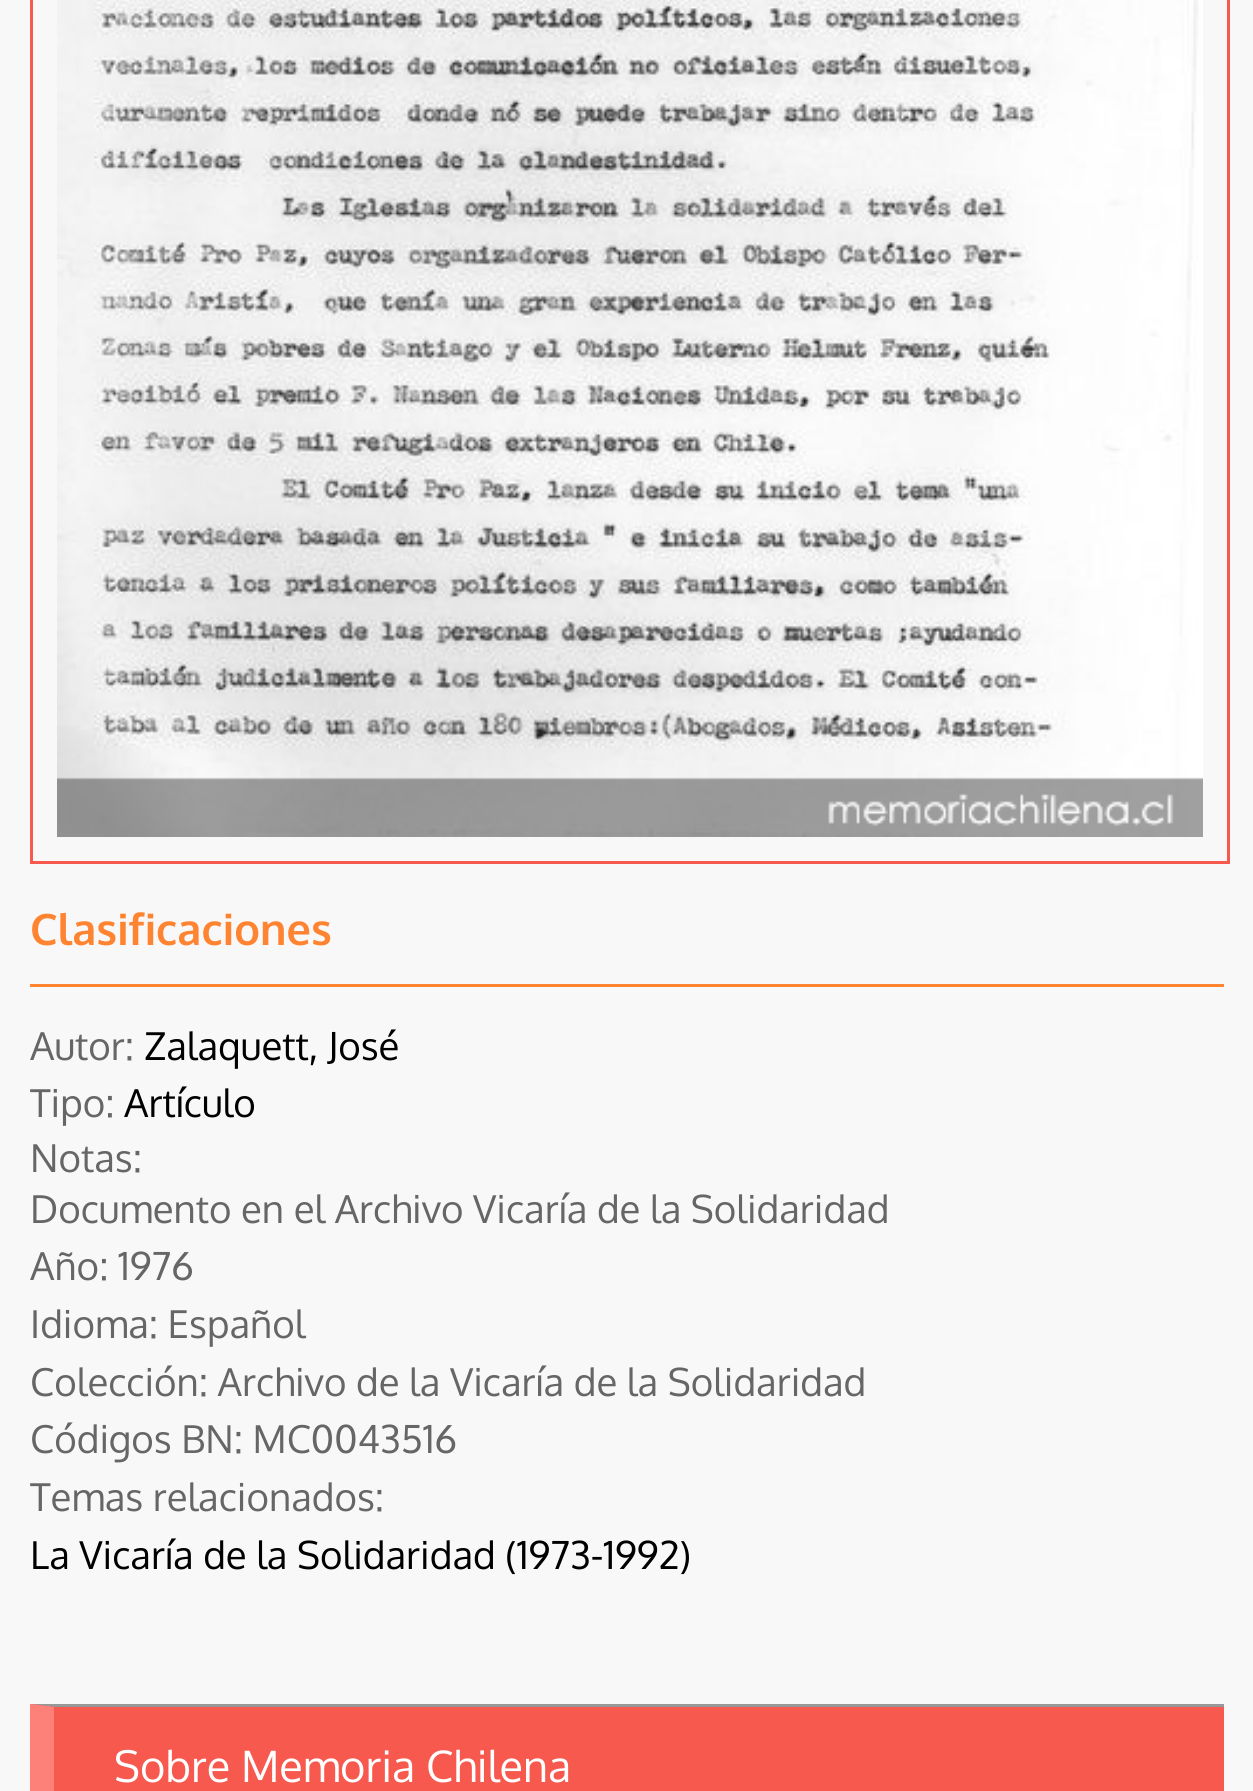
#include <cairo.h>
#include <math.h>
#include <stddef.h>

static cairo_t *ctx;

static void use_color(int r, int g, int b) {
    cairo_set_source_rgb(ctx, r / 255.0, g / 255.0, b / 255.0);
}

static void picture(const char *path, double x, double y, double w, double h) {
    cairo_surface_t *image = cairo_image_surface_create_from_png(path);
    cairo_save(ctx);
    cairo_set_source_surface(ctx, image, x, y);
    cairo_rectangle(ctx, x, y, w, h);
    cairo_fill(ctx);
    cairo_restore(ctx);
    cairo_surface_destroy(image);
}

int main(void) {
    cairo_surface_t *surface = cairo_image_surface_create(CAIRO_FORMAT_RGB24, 1253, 1791);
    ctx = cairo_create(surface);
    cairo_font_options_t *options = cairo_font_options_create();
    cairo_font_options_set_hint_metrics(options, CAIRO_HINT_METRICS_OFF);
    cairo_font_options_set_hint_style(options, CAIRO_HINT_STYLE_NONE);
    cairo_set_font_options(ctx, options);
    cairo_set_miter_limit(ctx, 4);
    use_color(248, 248, 248);
    cairo_paint(ctx);
    cairo_rectangle(ctx, 31.5, -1.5, 1197, 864);
    use_color(247, 89, 79);
    cairo_set_line_width(ctx, 3);
    cairo_stroke(ctx);
    picture("img1.png", 57, 0, 1146, 837);
    use_color(255, 132, 49);
    cairo_rectangle(ctx, 30, 984, 1194, 3);
    cairo_fill(ctx);
    cairo_select_font_face(ctx, "Oxygen", CAIRO_FONT_SLANT_NORMAL, CAIRO_FONT_WEIGHT_BOLD);
    cairo_set_font_size(ctx, 43.25);
    cairo_move_to(ctx, 30, 945);
    cairo_show_text(ctx, "Clasificaciones");
    cairo_select_font_face(ctx, "Oxygen", CAIRO_FONT_SLANT_NORMAL, CAIRO_FONT_WEIGHT_NORMAL);
    cairo_set_font_size(ctx, 38.4);
    use_color(102, 102, 102);
    cairo_move_to(ctx, 30, 1060);
    cairo_show_text(ctx, "Autor:");
    use_color(0, 0, 0);
    cairo_move_to(ctx, 144, 1060);
    cairo_show_text(ctx, "Zalaquett, José");
    use_color(102, 102, 102);
    cairo_move_to(ctx, 30, 1117);
    cairo_show_text(ctx, "Tipo:");
    use_color(0, 0, 0);
    cairo_move_to(ctx, 124, 1117);
    cairo_show_text(ctx, "Artículo");
    use_color(102, 102, 102);
    cairo_move_to(ctx, 30, 1172);
    cairo_show_text(ctx, "Notas:");
    cairo_move_to(ctx, 30, 1223);
    cairo_show_text(ctx, "Documento en el Archivo Vicaría de la Solidaridad");
    cairo_move_to(ctx, 30, 1280);
    cairo_show_text(ctx, "Año: 1976");
    cairo_move_to(ctx, 30, 1338);
    cairo_show_text(ctx, "Idioma: Español");
    cairo_move_to(ctx, 30, 1396);
    cairo_show_text(ctx, "Colección: Archivo de la Vicaría de la Solidaridad");
    cairo_move_to(ctx, 30, 1453);
    cairo_show_text(ctx, "Códigos BN: MC0043516");
    cairo_move_to(ctx, 30, 1511);
    cairo_show_text(ctx, "Temas relacionados:");
    use_color(0, 0, 0);
    cairo_move_to(ctx, 30, 1569);
    cairo_show_text(ctx, "La Vicaría de la Solidaridad (1973-1992)");
    use_color(247, 89, 79);
    cairo_rectangle(ctx, 30, 1704, 1194, 87);
    cairo_fill(ctx);
    use_color(152, 152, 152);
    cairo_new_path(ctx);
    cairo_move_to(ctx, 30, 1704);
    cairo_line_to(ctx, 1224, 1704);
    cairo_line_to(ctx, 1224, 1707);
    cairo_line_to(ctx, 54, 1707);
    cairo_close_path(ctx);
    cairo_fill(ctx);
    use_color(254, 129, 121);
    cairo_new_path(ctx);
    cairo_move_to(ctx, 30, 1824);
    cairo_line_to(ctx, 30, 1704);
    cairo_line_to(ctx, 54, 1707);
    cairo_line_to(ctx, 54, 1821);
    cairo_close_path(ctx);
    cairo_fill(ctx);
    cairo_set_font_size(ctx, 43.25);
    use_color(255, 255, 255);
    cairo_move_to(ctx, 114, 1782);
    cairo_show_text(ctx, "Sobre Memoria Chilena");
    cairo_surface_write_to_png(surface, "result.png");
    cairo_font_options_destroy(options);
    cairo_destroy(ctx);
    cairo_surface_destroy(surface);
    return 0;
}
